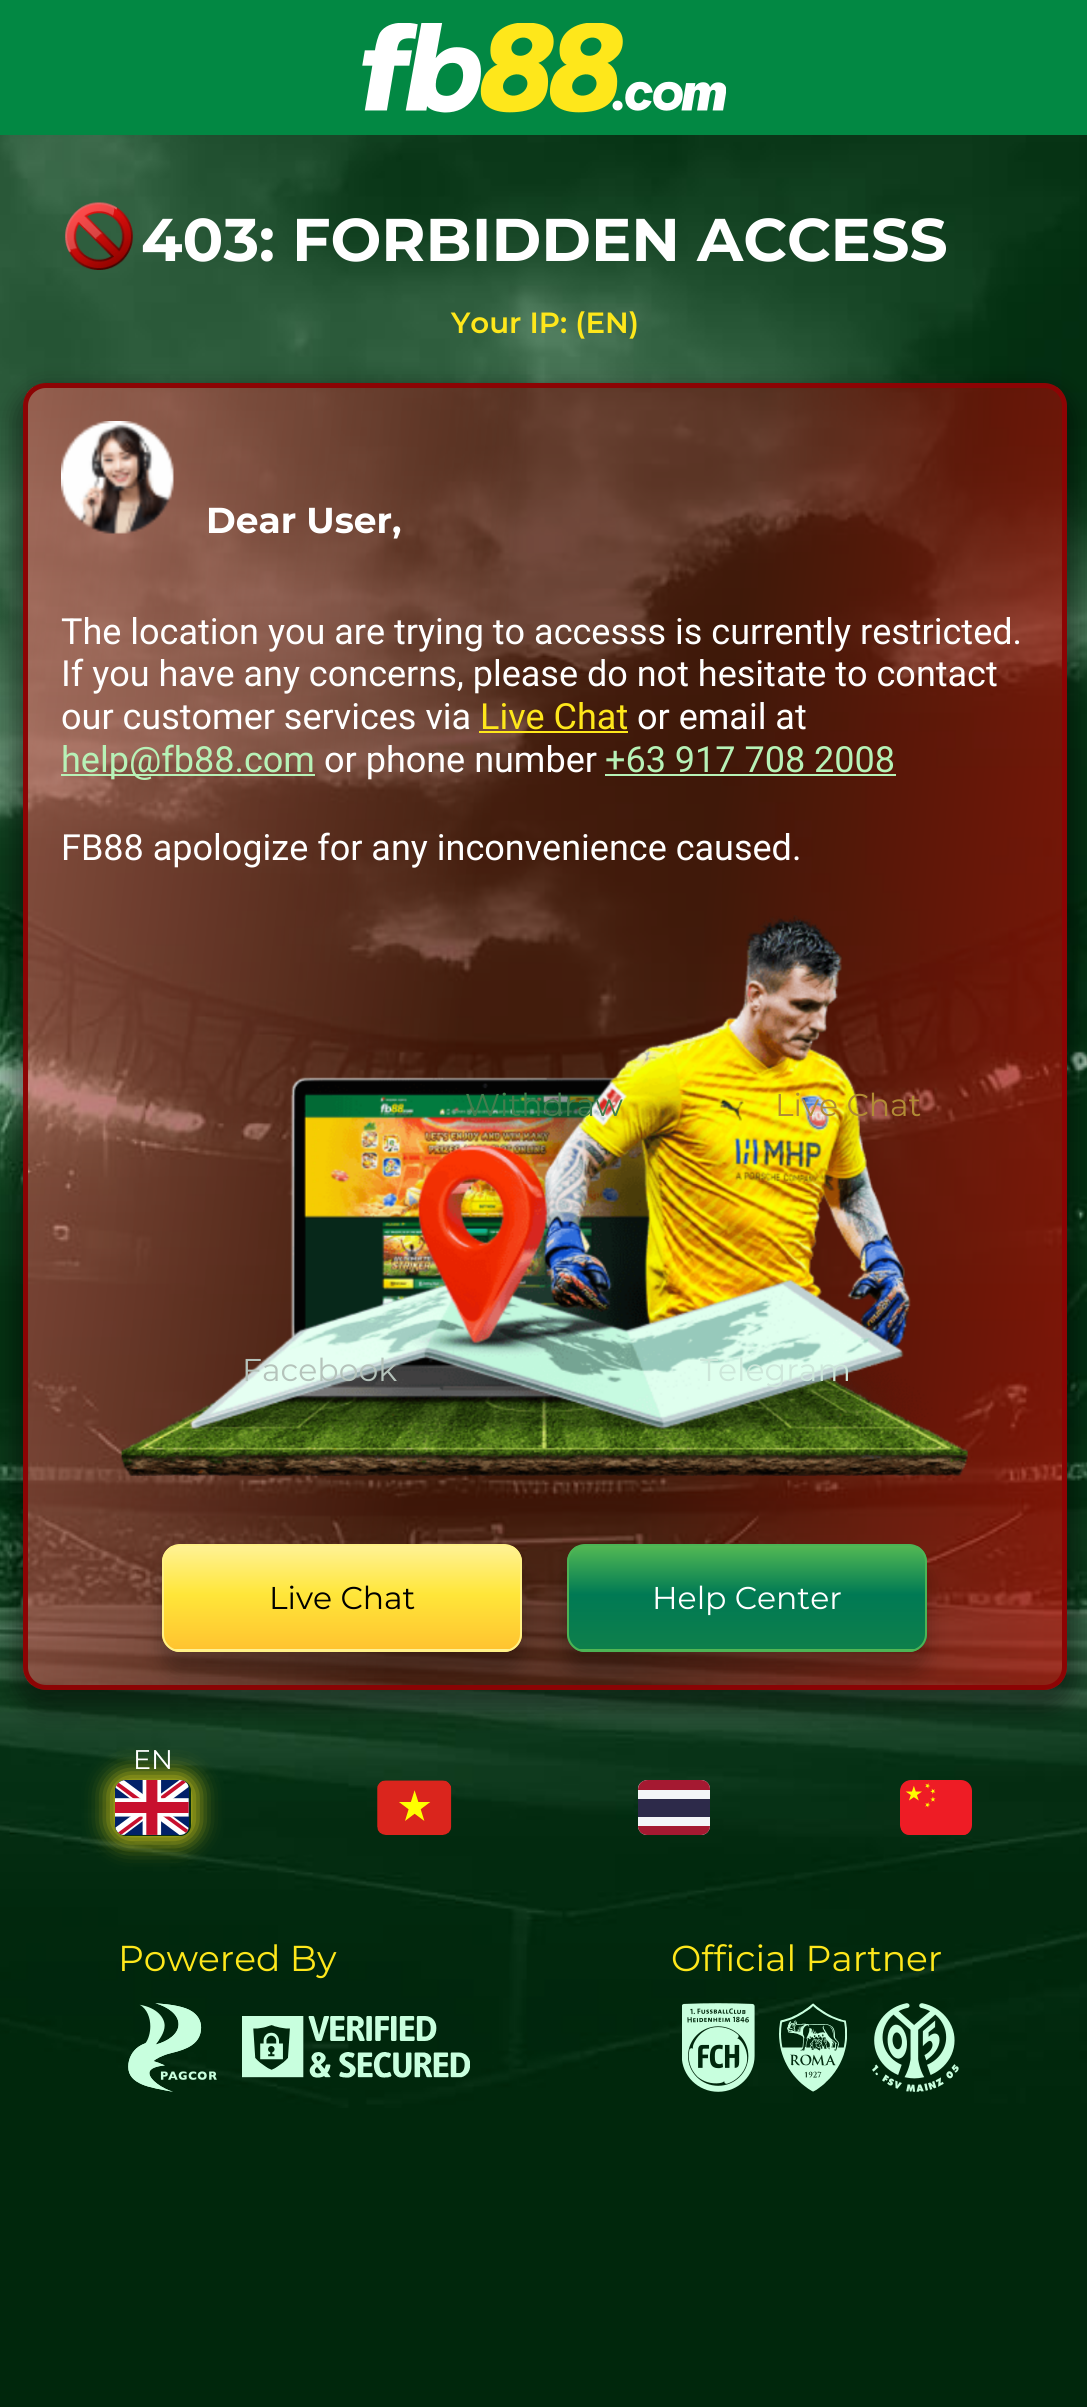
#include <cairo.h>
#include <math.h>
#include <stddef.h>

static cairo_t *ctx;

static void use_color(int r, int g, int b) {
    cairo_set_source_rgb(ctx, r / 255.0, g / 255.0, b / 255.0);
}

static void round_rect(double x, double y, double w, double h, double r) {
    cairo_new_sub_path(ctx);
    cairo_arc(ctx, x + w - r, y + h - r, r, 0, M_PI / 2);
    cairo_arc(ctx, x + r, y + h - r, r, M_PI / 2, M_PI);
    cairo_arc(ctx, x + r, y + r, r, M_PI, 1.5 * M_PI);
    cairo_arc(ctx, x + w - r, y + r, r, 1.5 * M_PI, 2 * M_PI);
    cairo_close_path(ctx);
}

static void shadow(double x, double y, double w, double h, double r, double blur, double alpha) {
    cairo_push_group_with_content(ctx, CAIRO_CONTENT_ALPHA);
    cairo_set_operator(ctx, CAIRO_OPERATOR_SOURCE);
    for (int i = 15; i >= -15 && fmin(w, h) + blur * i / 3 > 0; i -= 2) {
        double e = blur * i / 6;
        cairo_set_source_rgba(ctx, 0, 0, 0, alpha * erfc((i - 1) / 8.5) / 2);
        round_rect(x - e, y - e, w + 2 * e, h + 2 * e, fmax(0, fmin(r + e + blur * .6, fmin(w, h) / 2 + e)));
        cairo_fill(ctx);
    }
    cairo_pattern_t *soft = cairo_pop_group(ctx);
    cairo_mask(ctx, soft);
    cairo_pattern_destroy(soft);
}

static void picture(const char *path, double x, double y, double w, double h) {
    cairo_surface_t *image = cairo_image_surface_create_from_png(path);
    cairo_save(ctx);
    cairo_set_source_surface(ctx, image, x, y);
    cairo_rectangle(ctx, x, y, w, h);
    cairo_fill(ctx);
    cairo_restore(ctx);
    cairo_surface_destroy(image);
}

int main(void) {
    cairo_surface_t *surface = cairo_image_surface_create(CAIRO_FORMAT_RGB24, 1087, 2407);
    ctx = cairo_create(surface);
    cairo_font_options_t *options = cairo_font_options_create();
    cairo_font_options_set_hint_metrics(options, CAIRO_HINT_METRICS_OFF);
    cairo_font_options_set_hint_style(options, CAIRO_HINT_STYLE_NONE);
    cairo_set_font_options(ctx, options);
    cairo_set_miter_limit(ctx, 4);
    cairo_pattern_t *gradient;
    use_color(0, 39, 12);
    cairo_paint(ctx);
    picture("img1.png", 0, 135, 1087, 1973);
    use_color(2, 136, 67);
    cairo_rectangle(ctx, 0, 0, 1087, 135);
    cairo_fill(ctx);
    picture("img2.png", 362, 23, 364, 90);
    picture("img3.png", 65, 202, 68, 68);
    cairo_select_font_face(ctx, "Montserrat", CAIRO_FONT_SLANT_NORMAL, CAIRO_FONT_WEIGHT_BOLD);
    cairo_set_font_size(ctx, 60.25);
    use_color(255, 255, 255);
    cairo_move_to(ctx, 141, 261);
    cairo_show_text(ctx, "403: FORBIDDEN ACCESS");
    cairo_select_font_face(ctx, "Montserrat SemiBold", CAIRO_FONT_SLANT_NORMAL, CAIRO_FONT_WEIGHT_NORMAL);
    cairo_set_font_size(ctx, 29.25);
    use_color(254, 231, 27);
    cairo_move_to(ctx, 451, 333);
    cairo_show_text(ctx, "Your IP: (EN)");
    cairo_save(ctx);
    cairo_set_fill_rule(ctx, CAIRO_FILL_RULE_EVEN_ODD);
    cairo_new_path(ctx);
    cairo_move_to(ctx, 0, 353);
    cairo_line_to(ctx, 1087, 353);
    cairo_line_to(ctx, 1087, 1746);
    cairo_line_to(ctx, 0, 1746);
    cairo_close_path(ctx);
    cairo_move_to(ctx, 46, 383);
    cairo_line_to(ctx, 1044, 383);
    cairo_curve_to(ctx, 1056.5, 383, 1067, 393.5, 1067, 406);
    cairo_line_to(ctx, 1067, 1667);
    cairo_curve_to(ctx, 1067, 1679.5, 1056.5, 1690, 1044, 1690);
    cairo_line_to(ctx, 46, 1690);
    cairo_curve_to(ctx, 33.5, 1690, 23, 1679.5, 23, 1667);
    cairo_line_to(ctx, 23, 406);
    cairo_curve_to(ctx, 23, 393.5, 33.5, 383, 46, 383);
    cairo_close_path(ctx);
    cairo_clip(ctx);
    use_color(0, 0, 0);
    shadow(14, 387, 1062, 1325, 32, 11, 0.4);
    cairo_restore(ctx);
    cairo_save(ctx);
    round_rect(23, 383, 1044, 1307, 23);
    cairo_clip(ctx);
    gradient = cairo_pattern_create_linear(-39, 970, 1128, 1103);
    cairo_pattern_add_color_stop_rgba(gradient, 0.01, 1, 0.4, 0.4, 0.5);
    cairo_pattern_add_color_stop_rgba(gradient, 0.43, 0.475, 0, 0, 0.5);
    cairo_pattern_add_color_stop_rgba(gradient, 0.62, 0.475, 0, 0, 0.5);
    cairo_pattern_add_color_stop_rgba(gradient, 1, 1, 0, 0, 0.5);
    cairo_set_source(ctx, gradient);
    cairo_pattern_destroy(gradient);
    cairo_rectangle(ctx, 27, 387, 1035, 1298);
    cairo_fill(ctx);
    cairo_restore(ctx);
    round_rect(25.5, 385.5, 1039, 1302, 20.5);
    use_color(140, 4, 4);
    cairo_set_line_width(ctx, 5);
    cairo_stroke(ctx);
    picture("img4.png", 61, 421, 113, 113);
    cairo_select_font_face(ctx, "Montserrat", CAIRO_FONT_SLANT_NORMAL, CAIRO_FONT_WEIGHT_BOLD);
    cairo_set_font_size(ctx, 36);
    use_color(255, 255, 255);
    cairo_move_to(ctx, 206, 533);
    cairo_show_text(ctx, "Dear User,");
    cairo_select_font_face(ctx, "Roboto", CAIRO_FONT_SLANT_NORMAL, CAIRO_FONT_WEIGHT_NORMAL);
    cairo_move_to(ctx, 61, 644);
    cairo_show_text(ctx, "The location you are trying to accesss is currently restricted.");
    cairo_move_to(ctx, 61, 686);
    cairo_show_text(ctx, "If you have any concerns, please do not hesitate to contact");
    cairo_move_to(ctx, 61, 729);
    cairo_show_text(ctx, "our customer services via");
    use_color(254, 231, 27);
    cairo_move_to(ctx, 480, 729);
    cairo_show_text(ctx, "Live Chat");
    cairo_rectangle(ctx, 479, 731, 149, 2);
    cairo_fill(ctx);
    use_color(255, 255, 255);
    cairo_move_to(ctx, 637, 729);
    cairo_show_text(ctx, "or email at");
    use_color(183, 242, 183);
    cairo_rectangle(ctx, 61, 774, 254, 2);
    cairo_fill(ctx);
    cairo_move_to(ctx, 61, 772);
    cairo_show_text(ctx, "help@fb88.com");
    use_color(255, 255, 255);
    cairo_move_to(ctx, 324, 772);
    cairo_show_text(ctx, "or phone number");
    use_color(183, 242, 183);
    cairo_move_to(ctx, 605, 772);
    cairo_show_text(ctx, "+63 917 708 2008");
    cairo_rectangle(ctx, 605, 774, 291, 2);
    cairo_fill(ctx);
    use_color(255, 255, 255);
    cairo_move_to(ctx, 61, 860);
    cairo_show_text(ctx, "FB88 apologize for any inconvenience caused.");
    picture("img5.png", 120, 915, 848, 561);
    use_color(0, 0, 0);
    shadow(162, 1564, 360, 108, 18, 10, 0.25);
    cairo_save(ctx);
    round_rect(162, 1544, 360, 108, 18);
    cairo_clip(ctx);
    gradient = cairo_pattern_create_linear(342, 1649, 342, 1519);
    cairo_pattern_add_color_stop_rgba(gradient, 0, 1, 0.765, 0.188, 1);
    cairo_pattern_add_color_stop_rgba(gradient, 0.42, 1, 0.902, 0.224, 1);
    cairo_pattern_add_color_stop_rgba(gradient, 1, 1, 0.973, 0.78, 1);
    cairo_set_source(ctx, gradient);
    cairo_pattern_destroy(gradient);
    cairo_rectangle(ctx, 162, 1546, 360, 103);
    cairo_fill(ctx);
    gradient = cairo_pattern_create_linear(342, 1753, 342, 1622);
    cairo_pattern_add_color_stop_rgba(gradient, 0, 1, 0.765, 0.188, 1);
    cairo_pattern_add_color_stop_rgba(gradient, 0.42, 1, 0.902, 0.224, 1);
    cairo_pattern_add_color_stop_rgba(gradient, 1, 1, 0.973, 0.78, 1);
    cairo_set_source(ctx, gradient);
    cairo_pattern_destroy(gradient);
    cairo_rectangle(ctx, 162, 1649, 360, 3);
    cairo_fill(ctx);
    cairo_restore(ctx);
    round_rect(163, 1545, 358, 106, 17);
    use_color(255, 241, 134);
    cairo_set_line_width(ctx, 2);
    cairo_stroke(ctx);
    cairo_select_font_face(ctx, "Montserrat", CAIRO_FONT_SLANT_NORMAL, CAIRO_FONT_WEIGHT_NORMAL);
    cairo_set_font_size(ctx, 31.5);
    use_color(0, 0, 0);
    cairo_move_to(ctx, 269, 1609);
    cairo_show_text(ctx, "Live Chat");
    use_color(0, 0, 0);
    shadow(567, 1564, 360, 108, 18, 10, 0.25);
    cairo_save(ctx);
    round_rect(567, 1544, 360, 108, 18);
    cairo_clip(ctx);
    gradient = cairo_pattern_create_linear(747, 1649, 747, 1519);
    cairo_pattern_add_color_stop_rgba(gradient, 0, 0.055, 0.498, 0.294, 1);
    cairo_pattern_add_color_stop_rgba(gradient, 0.42, 0, 0.478, 0.329, 1);
    cairo_pattern_add_color_stop_rgba(gradient, 1, 0.502, 0.859, 0.329, 1);
    cairo_set_source(ctx, gradient);
    cairo_pattern_destroy(gradient);
    cairo_rectangle(ctx, 567, 1546, 360, 103);
    cairo_fill(ctx);
    gradient = cairo_pattern_create_linear(747, 1753, 747, 1622);
    cairo_pattern_add_color_stop_rgba(gradient, 0, 0.055, 0.498, 0.294, 1);
    cairo_pattern_add_color_stop_rgba(gradient, 0.42, 0, 0.478, 0.329, 1);
    cairo_pattern_add_color_stop_rgba(gradient, 1, 0.502, 0.859, 0.329, 1);
    cairo_set_source(ctx, gradient);
    cairo_pattern_destroy(gradient);
    cairo_rectangle(ctx, 567, 1649, 360, 3);
    cairo_fill(ctx);
    cairo_restore(ctx);
    round_rect(568, 1545, 358, 106, 17);
    use_color(76, 180, 85);
    cairo_stroke(ctx);
    use_color(255, 255, 255);
    cairo_move_to(ctx, 652, 1609);
    cairo_show_text(ctx, "Help Center");
    cairo_save(ctx);
    cairo_set_fill_rule(ctx, CAIRO_FILL_RULE_EVEN_ODD);
    cairo_new_path(ctx);
    cairo_move_to(ctx, 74, 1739);
    cairo_line_to(ctx, 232, 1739);
    cairo_line_to(ctx, 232, 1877);
    cairo_line_to(ctx, 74, 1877);
    cairo_close_path(ctx);
    cairo_move_to(ctx, 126, 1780);
    cairo_line_to(ctx, 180, 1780);
    cairo_curve_to(ctx, 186, 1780, 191, 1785, 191, 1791);
    cairo_line_to(ctx, 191, 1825);
    cairo_curve_to(ctx, 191, 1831, 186, 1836, 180, 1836);
    cairo_line_to(ctx, 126, 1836);
    cairo_curve_to(ctx, 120, 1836, 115, 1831, 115, 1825);
    cairo_line_to(ctx, 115, 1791);
    cairo_curve_to(ctx, 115, 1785, 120, 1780, 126, 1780);
    cairo_close_path(ctx);
    cairo_clip(ctx);
    use_color(254, 231, 27);
    shadow(108, 1773, 90, 70, 18, 11, 0.75);
    cairo_restore(ctx);
    picture("img6.png", 115, 1780, 74, 55);
    cairo_set_font_size(ctx, 27);
    cairo_move_to(ctx, 133, 1769);
    cairo_show_text(ctx, "EN");
    picture("img7.png", 377, 1780, 75, 55);
    cairo_save(ctx);
    round_rect(637, 1780, 76, 56, 11);
    cairo_clip(ctx);
    use_color(244, 245, 248);
    round_rect(638, 1780, 72, 55, 9);
    cairo_fill(ctx);
    cairo_restore(ctx);
    use_color(45, 42, 74);
    cairo_rectangle(ctx, 638, 1799, 72, 18);
    cairo_fill(ctx);
    use_color(165, 25, 49);
    cairo_set_fill_rule(ctx, CAIRO_FILL_RULE_EVEN_ODD);
    cairo_new_path(ctx);
    cairo_move_to(ctx, 648, 1780);
    cairo_line_to(ctx, 701, 1780);
    cairo_curve_to(ctx, 706, 1780, 710, 1784, 710, 1789);
    cairo_line_to(ctx, 710, 1790);
    cairo_line_to(ctx, 638, 1790);
    cairo_curve_to(ctx, 638, 1784, 642, 1780, 648, 1780);
    cairo_close_path(ctx);
    cairo_move_to(ctx, 638, 1826);
    cairo_curve_to(ctx, 638, 1831, 642, 1835, 647, 1835);
    cairo_line_to(ctx, 701, 1835);
    cairo_curve_to(ctx, 706, 1835, 710, 1831, 710, 1826);
    cairo_close_path(ctx);
    cairo_fill(ctx);
    picture("img8.png", 900, 1780, 72, 55);
    cairo_set_font_size(ctx, 36);
    use_color(254, 231, 27);
    cairo_move_to(ctx, 118, 1971);
    cairo_show_text(ctx, "Powered By");
    picture("img9.png", 128, 2003, 89, 89);
    picture("img10.png", 242, 2016, 228, 62);
    cairo_move_to(ctx, 671, 1971);
    cairo_show_text(ctx, "Official Partner");
    picture("img11.png", 682, 2003, 73, 89);
    picture("img12.png", 779, 2003, 68, 89);
    picture("img13.png", 872, 2003, 87, 89);
    cairo_set_font_size(ctx, 31.5);
    use_color(67, 126, 78);
    cairo_move_to(ctx, 465, 1116);
    cairo_show_text(ctx, "Withdraw");
    use_color(177, 139, 53);
    cairo_move_to(ctx, 775, 1116);
    cairo_show_text(ctx, "Live Chat");
    use_color(181, 195, 187);
    cairo_move_to(ctx, 242, 1381);
    cairo_show_text(ctx, "Facebook");
    use_color(205, 231, 218);
    cairo_move_to(ctx, 700, 1381);
    cairo_show_text(ctx, "Telegram");
    cairo_surface_write_to_png(surface, "result.png");
    cairo_font_options_destroy(options);
    cairo_destroy(ctx);
    cairo_surface_destroy(surface);
    return 0;
}
